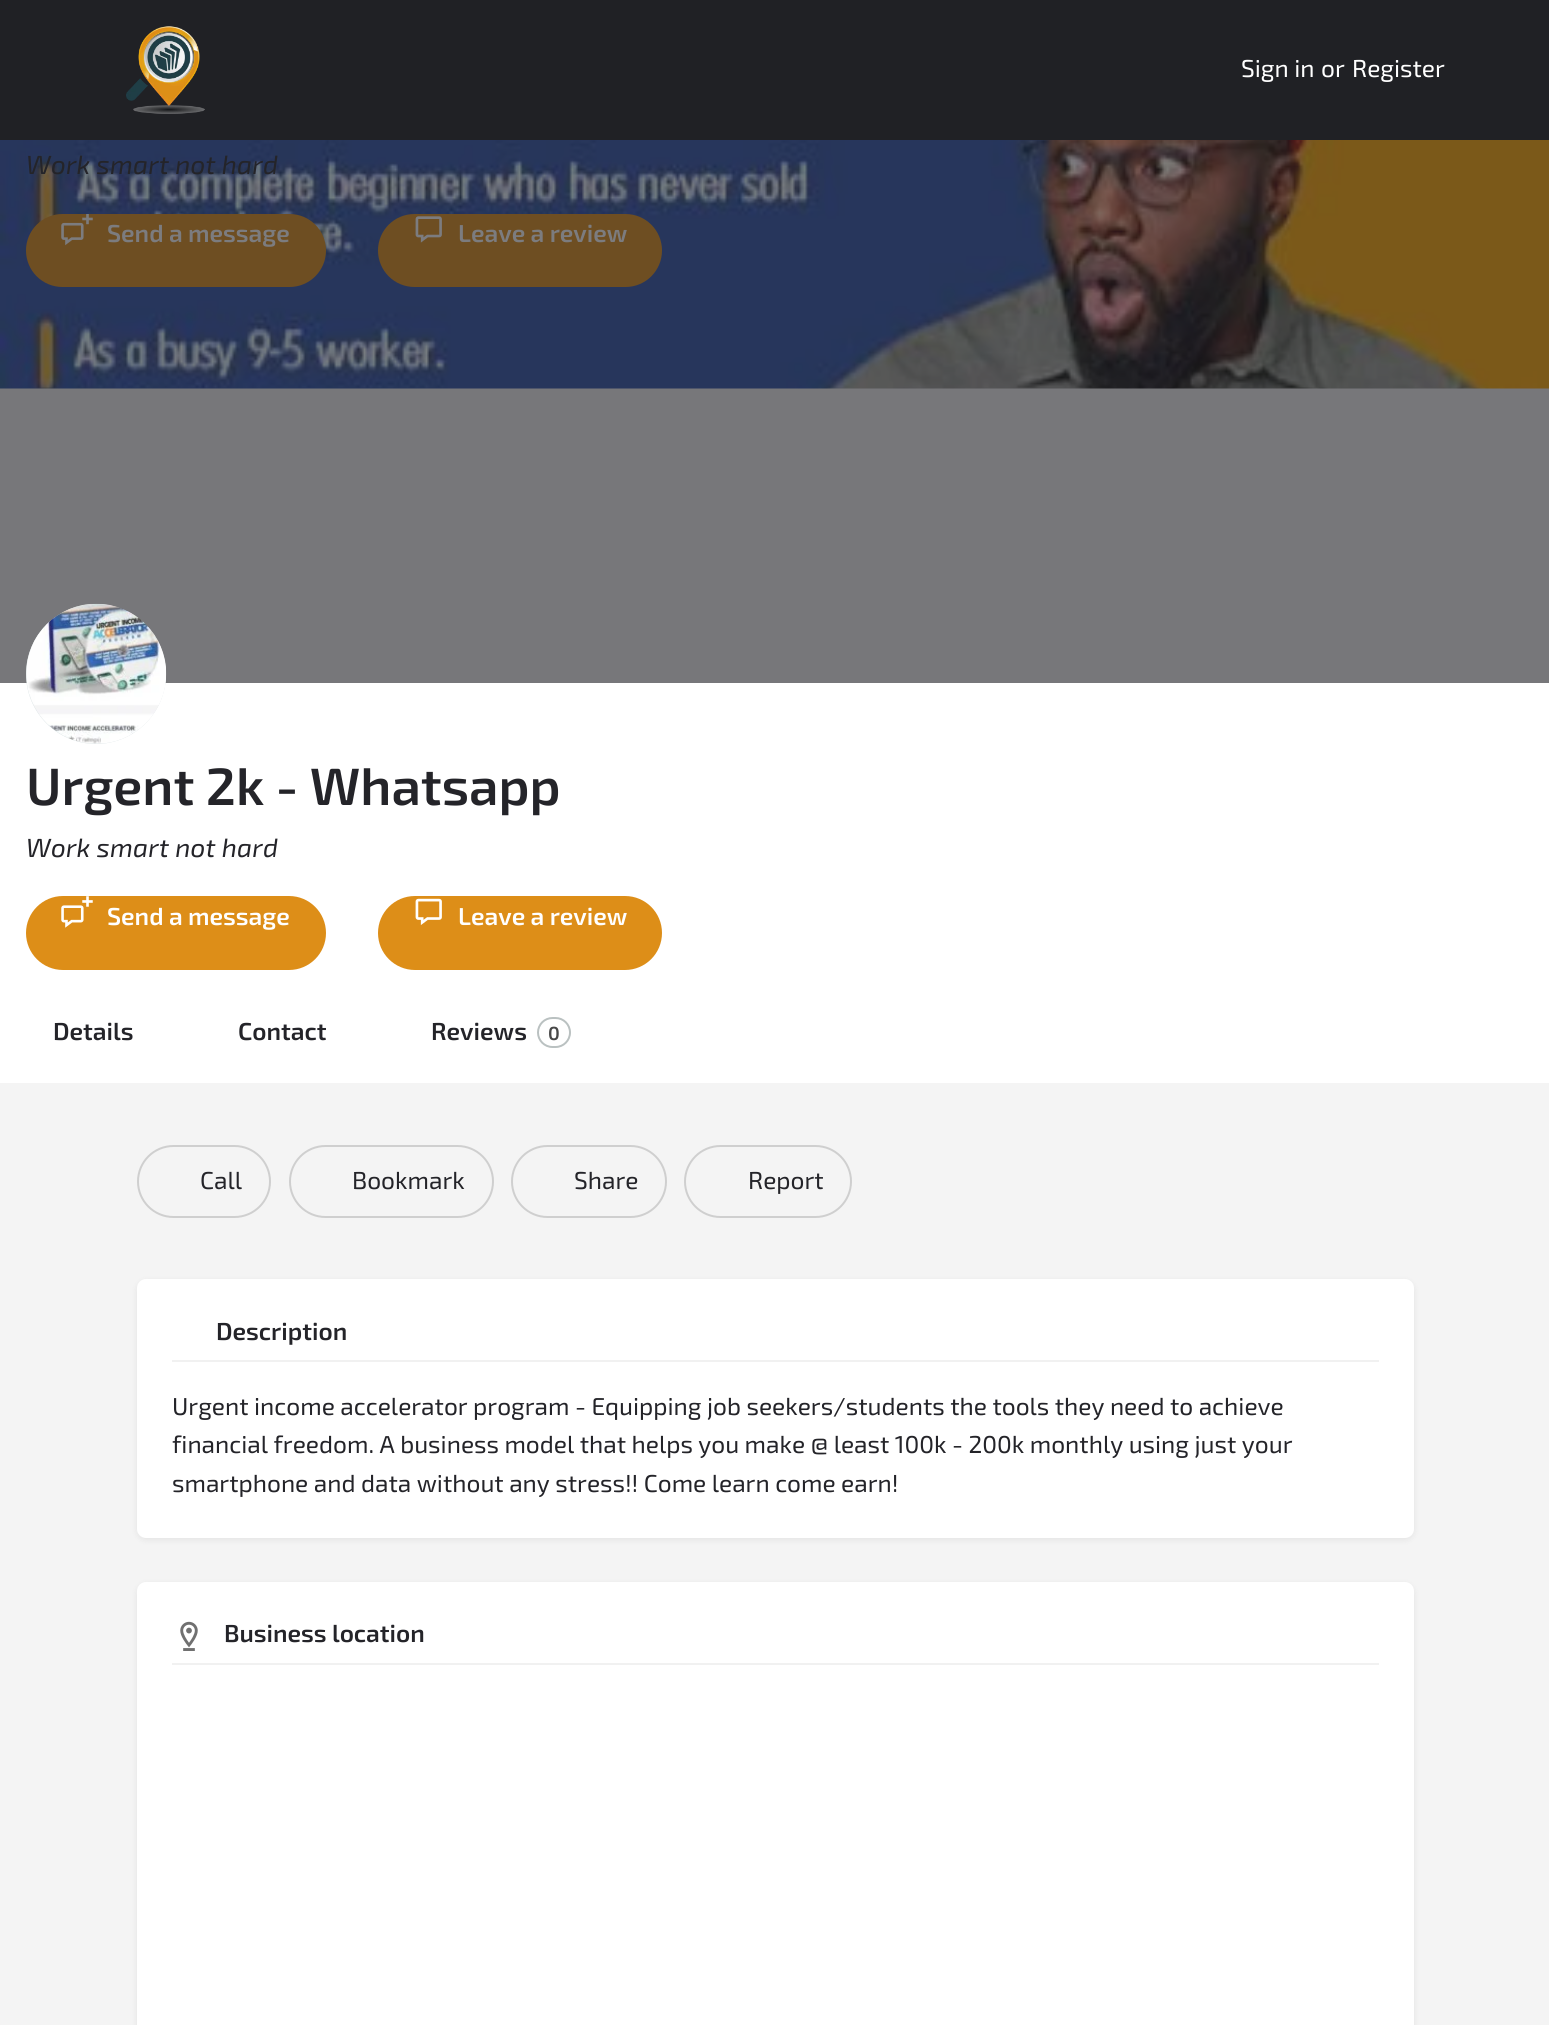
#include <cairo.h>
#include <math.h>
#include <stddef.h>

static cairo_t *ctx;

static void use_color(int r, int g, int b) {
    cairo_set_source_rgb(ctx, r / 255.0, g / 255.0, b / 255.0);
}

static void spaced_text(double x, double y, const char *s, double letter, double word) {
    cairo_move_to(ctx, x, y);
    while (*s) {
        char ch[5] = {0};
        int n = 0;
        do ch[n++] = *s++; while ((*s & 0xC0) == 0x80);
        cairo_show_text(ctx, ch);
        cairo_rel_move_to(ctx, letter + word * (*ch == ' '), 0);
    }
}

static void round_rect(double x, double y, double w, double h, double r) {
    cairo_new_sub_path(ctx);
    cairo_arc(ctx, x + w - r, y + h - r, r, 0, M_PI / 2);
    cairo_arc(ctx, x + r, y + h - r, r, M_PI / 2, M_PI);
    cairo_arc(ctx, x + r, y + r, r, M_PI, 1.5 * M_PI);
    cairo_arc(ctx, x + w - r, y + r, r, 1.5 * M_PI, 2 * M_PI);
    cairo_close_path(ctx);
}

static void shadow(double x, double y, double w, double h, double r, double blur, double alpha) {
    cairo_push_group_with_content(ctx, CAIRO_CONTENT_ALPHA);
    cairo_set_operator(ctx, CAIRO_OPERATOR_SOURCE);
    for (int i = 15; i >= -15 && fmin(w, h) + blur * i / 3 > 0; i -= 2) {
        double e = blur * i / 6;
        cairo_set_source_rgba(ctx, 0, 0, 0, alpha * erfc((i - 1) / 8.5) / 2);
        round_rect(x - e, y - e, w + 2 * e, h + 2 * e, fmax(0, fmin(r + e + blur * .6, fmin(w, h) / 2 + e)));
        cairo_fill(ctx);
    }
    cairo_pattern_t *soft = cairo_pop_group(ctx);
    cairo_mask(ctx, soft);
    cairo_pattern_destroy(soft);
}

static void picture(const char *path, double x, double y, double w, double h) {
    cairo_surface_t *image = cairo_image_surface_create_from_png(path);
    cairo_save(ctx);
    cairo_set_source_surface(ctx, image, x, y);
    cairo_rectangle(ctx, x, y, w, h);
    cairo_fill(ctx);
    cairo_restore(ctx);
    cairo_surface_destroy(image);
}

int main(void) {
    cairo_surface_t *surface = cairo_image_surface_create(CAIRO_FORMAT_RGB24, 1549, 2025);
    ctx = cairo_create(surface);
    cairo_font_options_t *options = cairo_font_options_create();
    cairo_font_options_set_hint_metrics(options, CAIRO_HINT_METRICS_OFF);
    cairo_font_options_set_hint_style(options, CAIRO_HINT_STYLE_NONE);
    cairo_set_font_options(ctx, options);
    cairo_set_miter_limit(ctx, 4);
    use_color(244, 244, 244);
    cairo_paint(ctx);
    use_color(119, 119, 122);
    cairo_rectangle(ctx, 0, 388, 1549, 295);
    cairo_fill(ctx);
    use_color(32, 33, 37);
    cairo_rectangle(ctx, 0, 0, 1549, 140);
    cairo_fill(ctx);
    picture("img1.png", 126, 26, 79, 88);
    cairo_select_font_face(ctx, "Exo 2", CAIRO_FONT_SLANT_NORMAL, CAIRO_FONT_WEIGHT_NORMAL);
    cairo_set_font_size(ctx, 24.5);
    use_color(255, 255, 255);
    cairo_move_to(ctx, 1241, 77);
    cairo_show_text(ctx, "Sign in");
    cairo_move_to(ctx, 1321, 77);
    cairo_show_text(ctx, "or");
    cairo_move_to(ctx, 1352, 77);
    cairo_show_text(ctx, "Register");
    picture("img2.png", 0, 140, 1549, 249);
    cairo_select_font_face(ctx, "Exo 2", CAIRO_FONT_SLANT_ITALIC, CAIRO_FONT_WEIGHT_NORMAL);
    cairo_set_font_size(ctx, 26.25);
    use_color(36, 36, 41);
    spaced_text(26, 174, "Work smart not hard", 0.2, 0);
    use_color(110, 78, 34);
    round_rect(26, 214, 300, 73, 36.5);
    cairo_fill(ctx);
    picture("img3.png", 61, 214, 32, 32);
    cairo_select_font_face(ctx, "Exo 2 SemiBold", CAIRO_FONT_SLANT_NORMAL, CAIRO_FONT_WEIGHT_NORMAL);
    cairo_set_font_size(ctx, 24.5);
    use_color(124, 124, 127);
    cairo_move_to(ctx, 107, 242);
    cairo_show_text(ctx, "Send a message");
    use_color(110, 78, 34);
    round_rect(378, 214, 284, 73, 36.5);
    cairo_fill(ctx);
    picture("img4.png", 415, 216, 27, 27);
    use_color(124, 124, 127);
    cairo_move_to(ctx, 458, 242);
    cairo_show_text(ctx, "Leave a review");
    use_color(255, 255, 255);
    cairo_rectangle(ctx, 0, 683, 1549, 400);
    cairo_fill(ctx);
    use_color(221, 229, 230);
    cairo_arc(ctx, 96, 674, 70, 0, 2 * M_PI);
    cairo_fill(ctx);
    picture("img5.png", 26, 603, 141, 141);
    cairo_set_font_size(ctx, 52.5);
    use_color(36, 36, 41);
    cairo_move_to(ctx, 26, 805);
    cairo_show_text(ctx, "Urgent 2k - Whatsapp");
    cairo_select_font_face(ctx, "Exo 2", CAIRO_FONT_SLANT_ITALIC, CAIRO_FONT_WEIGHT_NORMAL);
    cairo_set_font_size(ctx, 26.25);
    spaced_text(26, 857, "Work smart not hard", 0.2, 0);
    use_color(221, 142, 24);
    round_rect(26, 896, 300, 74, 37);
    cairo_fill(ctx);
    picture("img6.png", 61, 896, 32, 32);
    cairo_select_font_face(ctx, "Exo 2 SemiBold", CAIRO_FONT_SLANT_NORMAL, CAIRO_FONT_WEIGHT_NORMAL);
    cairo_set_font_size(ctx, 24.5);
    use_color(255, 255, 255);
    cairo_move_to(ctx, 107, 925);
    cairo_show_text(ctx, "Send a message");
    use_color(221, 142, 24);
    round_rect(378, 896, 284, 74, 37);
    cairo_fill(ctx);
    picture("img7.png", 415, 898, 27, 27);
    use_color(255, 255, 255);
    cairo_move_to(ctx, 458, 925);
    cairo_show_text(ctx, "Leave a review");
    use_color(36, 36, 41);
    cairo_move_to(ctx, 53, 1040);
    cairo_show_text(ctx, "Details");
    cairo_move_to(ctx, 238, 1040);
    cairo_show_text(ctx, "Contact");
    cairo_move_to(ctx, 431, 1040);
    cairo_show_text(ctx, "Reviews");
    round_rect(538, 1018, 32, 29, 14.5);
    use_color(186, 193, 193);
    cairo_stroke(ctx);
    cairo_set_font_size(ctx, 19);
    use_color(72, 72, 72);
    cairo_move_to(ctx, 548, 1040);
    cairo_show_text(ctx, "0");
    round_rect(138, 1146, 132, 71, 35.5);
    use_color(207, 207, 207);
    cairo_stroke(ctx);
    cairo_select_font_face(ctx, "Exo 2", CAIRO_FONT_SLANT_NORMAL, CAIRO_FONT_WEIGHT_NORMAL);
    cairo_set_font_size(ctx, 24.5);
    use_color(36, 36, 41);
    cairo_move_to(ctx, 200, 1189);
    cairo_show_text(ctx, "Call");
    round_rect(290, 1146, 203, 71, 35.5);
    use_color(207, 207, 207);
    cairo_stroke(ctx);
    use_color(36, 36, 41);
    cairo_move_to(ctx, 352, 1189);
    cairo_show_text(ctx, "Bookmark");
    round_rect(512, 1146, 154, 71, 35.5);
    use_color(207, 207, 207);
    cairo_stroke(ctx);
    use_color(36, 36, 41);
    cairo_move_to(ctx, 574, 1189);
    cairo_show_text(ctx, "Share");
    round_rect(685, 1146, 166, 71, 35.5);
    use_color(207, 207, 207);
    cairo_stroke(ctx);
    use_color(36, 36, 41);
    cairo_move_to(ctx, 748, 1189);
    cairo_show_text(ctx, "Report");
    use_color(0, 0, 0);
    shadow(137, 1281, 1277, 259, 9, 3.5, 0.07);
    use_color(255, 255, 255);
    round_rect(137, 1279, 1277, 259, 9);
    cairo_fill(ctx);
    use_color(241, 241, 241);
    cairo_rectangle(ctx, 172, 1360, 1207, 2);
    cairo_fill(ctx);
    cairo_select_font_face(ctx, "Exo 2 SemiBold", CAIRO_FONT_SLANT_NORMAL, CAIRO_FONT_WEIGHT_NORMAL);
    use_color(36, 36, 41);
    cairo_move_to(ctx, 216, 1340);
    cairo_show_text(ctx, "Description");
    cairo_select_font_face(ctx, "Exo 2", CAIRO_FONT_SLANT_NORMAL, CAIRO_FONT_WEIGHT_NORMAL);
    cairo_move_to(ctx, 172, 1415);
    cairo_show_text(ctx, "Urgent income accelerator program - Equipping job seekers/students the tools they need to achieve");
    cairo_move_to(ctx, 172, 1453);
    cairo_show_text(ctx, "financial freedom. A business model that helps you make @ least 100k - 200k monthly using just your");
    cairo_move_to(ctx, 172, 1492);
    cairo_show_text(ctx, "smartphone and data without any stress!! Come learn come earn!");
    use_color(0, 0, 0);
    shadow(137, 1584, 1277, 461, 9, 3.5, 0.07);
    use_color(255, 255, 255);
    round_rect(137, 1582, 1277, 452, 9);
    cairo_fill(ctx);
    use_color(241, 241, 241);
    cairo_rectangle(ctx, 172, 1663, 1207, 2);
    cairo_fill(ctx);
    picture("img8.png", 180, 1621, 18, 30);
    cairo_select_font_face(ctx, "Exo 2 SemiBold", CAIRO_FONT_SLANT_NORMAL, CAIRO_FONT_WEIGHT_NORMAL);
    use_color(36, 36, 41);
    cairo_move_to(ctx, 224, 1642);
    cairo_show_text(ctx, "Business location");
    cairo_surface_write_to_png(surface, "result.png");
    cairo_font_options_destroy(options);
    cairo_destroy(ctx);
    cairo_surface_destroy(surface);
    return 0;
}
